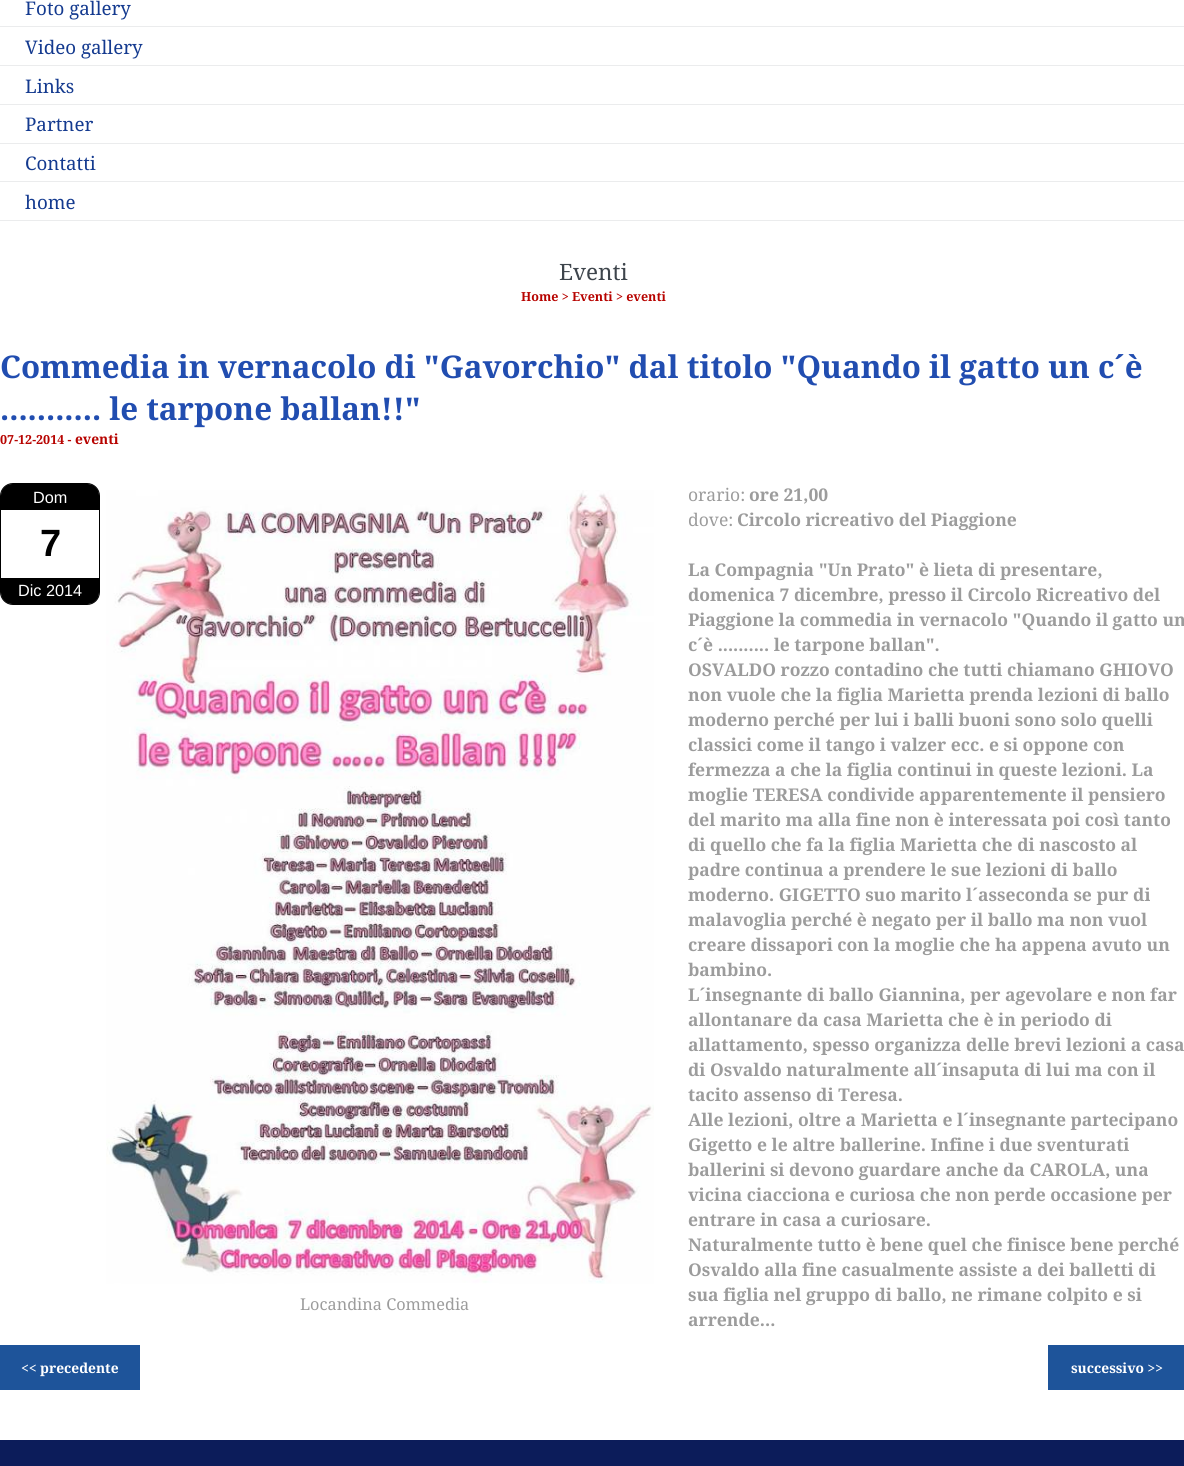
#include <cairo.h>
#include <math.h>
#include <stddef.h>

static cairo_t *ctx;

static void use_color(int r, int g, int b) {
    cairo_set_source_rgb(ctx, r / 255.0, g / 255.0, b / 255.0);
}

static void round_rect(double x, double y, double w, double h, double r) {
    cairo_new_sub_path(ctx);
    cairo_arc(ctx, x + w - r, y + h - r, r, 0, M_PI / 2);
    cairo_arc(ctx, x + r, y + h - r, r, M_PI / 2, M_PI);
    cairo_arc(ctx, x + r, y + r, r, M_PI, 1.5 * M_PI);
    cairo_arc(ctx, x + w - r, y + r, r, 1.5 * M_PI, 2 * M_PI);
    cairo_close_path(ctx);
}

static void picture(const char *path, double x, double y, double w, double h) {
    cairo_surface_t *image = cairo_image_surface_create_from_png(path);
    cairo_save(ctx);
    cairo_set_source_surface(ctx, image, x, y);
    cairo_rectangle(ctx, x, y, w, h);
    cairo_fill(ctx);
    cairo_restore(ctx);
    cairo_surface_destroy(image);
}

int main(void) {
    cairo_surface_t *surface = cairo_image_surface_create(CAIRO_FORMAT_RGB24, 1184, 1466);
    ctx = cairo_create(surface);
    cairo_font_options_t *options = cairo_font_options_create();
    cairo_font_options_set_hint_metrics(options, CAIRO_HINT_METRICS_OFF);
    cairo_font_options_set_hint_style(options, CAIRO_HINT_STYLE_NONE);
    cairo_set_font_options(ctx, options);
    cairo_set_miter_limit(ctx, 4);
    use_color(255, 255, 255);
    cairo_paint(ctx);
    use_color(235, 236, 237);
    cairo_rectangle(ctx, 0, 26, 1184, 1);
    cairo_fill(ctx);
    cairo_select_font_face(ctx, "Noto Serif", CAIRO_FONT_SLANT_NORMAL, CAIRO_FONT_WEIGHT_NORMAL);
    cairo_set_font_size(ctx, 18.75);
    use_color(20, 58, 143);
    cairo_move_to(ctx, 25, 15);
    cairo_show_text(ctx, "Foto gallery");
    use_color(235, 236, 237);
    cairo_rectangle(ctx, 0, 65, 1184, 1);
    cairo_fill(ctx);
    use_color(20, 58, 143);
    cairo_move_to(ctx, 25, 54);
    cairo_show_text(ctx, "Video gallery");
    use_color(235, 236, 237);
    cairo_rectangle(ctx, 0, 104, 1184, 1);
    cairo_fill(ctx);
    use_color(20, 58, 143);
    cairo_move_to(ctx, 25, 93);
    cairo_show_text(ctx, "Links");
    use_color(235, 236, 237);
    cairo_rectangle(ctx, 0, 143, 1184, 1);
    cairo_fill(ctx);
    use_color(20, 58, 143);
    cairo_move_to(ctx, 25, 131);
    cairo_show_text(ctx, "Partner");
    use_color(235, 236, 237);
    cairo_rectangle(ctx, 0, 181, 1184, 1);
    cairo_fill(ctx);
    use_color(20, 58, 143);
    cairo_move_to(ctx, 25, 170);
    cairo_show_text(ctx, "Contatti");
    use_color(235, 236, 237);
    cairo_rectangle(ctx, 0, 220, 1184, 1);
    cairo_fill(ctx);
    use_color(20, 58, 143);
    cairo_move_to(ctx, 25, 209);
    cairo_show_text(ctx, "home");
    cairo_set_font_size(ctx, 22.5);
    use_color(62, 69, 76);
    cairo_move_to(ctx, 559, 280);
    cairo_show_text(ctx, "Eventi");
    cairo_select_font_face(ctx, "Noto Serif", CAIRO_FONT_SLANT_NORMAL, CAIRO_FONT_WEIGHT_BOLD);
    cairo_set_font_size(ctx, 12.5);
    use_color(183, 3, 0);
    cairo_move_to(ctx, 521, 301);
    cairo_show_text(ctx, "Home > Eventi > eventi");
    cairo_set_font_size(ctx, 31.25);
    use_color(33, 77, 176);
    cairo_move_to(ctx, 0, 378);
    cairo_show_text(ctx, "Commedia in vernacolo di \"Gavorchio\" dal titolo \"Quando il gatto un c´è");
    cairo_move_to(ctx, 0, 420);
    cairo_show_text(ctx, "........... le tarpone ballan!!\"");
    cairo_set_font_size(ctx, 12.5);
    use_color(183, 3, 0);
    cairo_move_to(ctx, 0, 444);
    cairo_show_text(ctx, "07-12-2014 -");
    cairo_set_font_size(ctx, 13.75);
    cairo_move_to(ctx, 75, 444);
    cairo_show_text(ctx, "eventi");
    round_rect(0.5, 483.5, 99, 121, 12.5);
    use_color(0, 0, 0);
    cairo_set_line_width(ctx, 1);
    cairo_stroke(ctx);
    cairo_new_path(ctx);
    cairo_move_to(ctx, 12, 484);
    cairo_line_to(ctx, 88, 484);
    cairo_curve_to(ctx, 94, 484, 99, 489, 99, 495);
    cairo_line_to(ctx, 99, 510);
    cairo_line_to(ctx, 1, 510);
    cairo_line_to(ctx, 1, 495);
    cairo_curve_to(ctx, 1, 489, 6, 484, 12, 484);
    cairo_close_path(ctx);
    cairo_fill(ctx);
    cairo_select_font_face(ctx, "Liberation Sans", CAIRO_FONT_SLANT_NORMAL, CAIRO_FONT_WEIGHT_NORMAL);
    cairo_set_font_size(ctx, 16.25);
    use_color(255, 255, 255);
    cairo_move_to(ctx, 33, 503);
    cairo_show_text(ctx, "Dom");
    cairo_select_font_face(ctx, "Liberation Sans", CAIRO_FONT_SLANT_NORMAL, CAIRO_FONT_WEIGHT_BOLD);
    cairo_set_font_size(ctx, 38);
    use_color(0, 0, 0);
    cairo_move_to(ctx, 40, 556);
    cairo_show_text(ctx, "7");
    cairo_new_path(ctx);
    cairo_move_to(ctx, 1, 578);
    cairo_line_to(ctx, 99, 578);
    cairo_line_to(ctx, 99, 593);
    cairo_curve_to(ctx, 99, 599, 94, 604, 88, 604);
    cairo_line_to(ctx, 12, 604);
    cairo_curve_to(ctx, 6, 604, 1, 599, 1, 593);
    cairo_close_path(ctx);
    cairo_fill(ctx);
    cairo_select_font_face(ctx, "Liberation Sans", CAIRO_FONT_SLANT_NORMAL, CAIRO_FONT_WEIGHT_NORMAL);
    cairo_set_font_size(ctx, 16.25);
    use_color(255, 255, 255);
    cairo_move_to(ctx, 18, 596);
    cairo_show_text(ctx, "Dic 2014");
    cairo_select_font_face(ctx, "Noto Serif", CAIRO_FONT_SLANT_NORMAL, CAIRO_FONT_WEIGHT_NORMAL);
    cairo_set_font_size(ctx, 17.5);
    use_color(156, 156, 156);
    cairo_move_to(ctx, 688, 501);
    cairo_show_text(ctx, "orario:");
    cairo_select_font_face(ctx, "Noto Serif", CAIRO_FONT_SLANT_NORMAL, CAIRO_FONT_WEIGHT_BOLD);
    cairo_move_to(ctx, 749, 501);
    cairo_show_text(ctx, "ore 21,00");
    cairo_select_font_face(ctx, "Noto Serif", CAIRO_FONT_SLANT_NORMAL, CAIRO_FONT_WEIGHT_NORMAL);
    cairo_move_to(ctx, 688, 526);
    cairo_show_text(ctx, "dove:");
    cairo_select_font_face(ctx, "Noto Serif", CAIRO_FONT_SLANT_NORMAL, CAIRO_FONT_WEIGHT_BOLD);
    cairo_move_to(ctx, 737, 526);
    cairo_show_text(ctx, "Circolo ricreativo del Piaggione");
    cairo_move_to(ctx, 688, 576);
    cairo_show_text(ctx, "La Compagnia \"Un Prato\" è lieta di presentare,");
    cairo_move_to(ctx, 688, 601);
    cairo_show_text(ctx, "domenica 7 dicembre, presso il Circolo Ricreativo del");
    cairo_move_to(ctx, 688, 626);
    cairo_show_text(ctx, "Piaggione la commedia in vernacolo \"Quando il gatto un");
    cairo_move_to(ctx, 688, 651);
    cairo_show_text(ctx, "c´è .......... le tarpone ballan\".");
    cairo_move_to(ctx, 688, 676);
    cairo_show_text(ctx, "OSVALDO rozzo contadino che tutti chiamano GHIOVO");
    cairo_move_to(ctx, 688, 701);
    cairo_show_text(ctx, "non vuole che la figlia Marietta prenda lezioni di ballo");
    cairo_move_to(ctx, 688, 726);
    cairo_show_text(ctx, "moderno perché per lui i balli buoni sono solo quelli");
    cairo_move_to(ctx, 688, 751);
    cairo_show_text(ctx, "classici come il tango i valzer ecc. e si oppone con");
    cairo_move_to(ctx, 688, 776);
    cairo_show_text(ctx, "fermezza a che la figlia continui in queste lezioni. La");
    cairo_move_to(ctx, 688, 801);
    cairo_show_text(ctx, "moglie TERESA condivide apparentemente il pensiero");
    cairo_move_to(ctx, 688, 826);
    cairo_show_text(ctx, "del marito ma alla fine non è interessata poi così tanto");
    cairo_move_to(ctx, 688, 851);
    cairo_show_text(ctx, "di quello che fa la figlia Marietta che di nascosto al");
    cairo_move_to(ctx, 688, 876);
    cairo_show_text(ctx, "padre continua a prendere le sue lezioni di ballo");
    cairo_move_to(ctx, 688, 901);
    cairo_show_text(ctx, "moderno. GIGETTO suo marito l´asseconda se pur di");
    cairo_move_to(ctx, 688, 926);
    cairo_show_text(ctx, "malavoglia perché è negato per il ballo ma non vuol");
    cairo_move_to(ctx, 688, 951);
    cairo_show_text(ctx, "creare dissapori con la moglie che ha appena avuto un");
    cairo_move_to(ctx, 688, 976);
    cairo_show_text(ctx, "bambino.");
    cairo_move_to(ctx, 688, 1001);
    cairo_show_text(ctx, "L´insegnante di ballo Giannina, per agevolare e non far");
    cairo_move_to(ctx, 688, 1026);
    cairo_show_text(ctx, "allontanare da casa Marietta che è in periodo di");
    cairo_move_to(ctx, 688, 1051);
    cairo_show_text(ctx, "allattamento, spesso organizza delle brevi lezioni a casa");
    cairo_move_to(ctx, 688, 1076);
    cairo_show_text(ctx, "di Osvaldo naturalmente all´insaputa di lui ma con il");
    cairo_move_to(ctx, 688, 1101);
    cairo_show_text(ctx, "tacito assenso di Teresa.");
    cairo_move_to(ctx, 688, 1126);
    cairo_show_text(ctx, "Alle lezioni, oltre a Marietta e l´insegnante partecipano");
    cairo_move_to(ctx, 688, 1151);
    cairo_show_text(ctx, "Gigetto e le altre ballerine. Infine i due sventurati");
    cairo_move_to(ctx, 688, 1176);
    cairo_show_text(ctx, "ballerini si devono guardare anche da CAROLA, una");
    cairo_move_to(ctx, 688, 1201);
    cairo_show_text(ctx, "vicina ciacciona e curiosa che non perde occasione per");
    cairo_move_to(ctx, 688, 1226);
    cairo_show_text(ctx, "entrare in casa a curiosare.");
    cairo_move_to(ctx, 688, 1251);
    cairo_show_text(ctx, "Naturalmente tutto è bene quel che finisce bene perché");
    cairo_move_to(ctx, 688, 1276);
    cairo_show_text(ctx, "Osvaldo alla fine casualmente assiste a dei balletti di");
    cairo_move_to(ctx, 688, 1301);
    cairo_show_text(ctx, "sua figlia nel gruppo di ballo, ne rimane colpito e si");
    cairo_move_to(ctx, 688, 1326);
    cairo_show_text(ctx, "arrende...");
    picture("img1.png", 106, 490, 548, 794);
    cairo_select_font_face(ctx, "Noto Serif", CAIRO_FONT_SLANT_NORMAL, CAIRO_FONT_WEIGHT_NORMAL);
    cairo_set_font_size(ctx, 16.25);
    cairo_move_to(ctx, 300, 1310);
    cairo_show_text(ctx, "Locandina Commedia");
    use_color(30, 84, 154);
    cairo_rectangle(ctx, 0, 1345, 140, 45);
    cairo_fill(ctx);
    cairo_select_font_face(ctx, "Noto Serif", CAIRO_FONT_SLANT_NORMAL, CAIRO_FONT_WEIGHT_BOLD);
    cairo_set_font_size(ctx, 13.75);
    use_color(255, 255, 255);
    cairo_move_to(ctx, 21, 1373);
    cairo_show_text(ctx, "<< precedente");
    use_color(30, 84, 154);
    cairo_rectangle(ctx, 1048, 1345, 136, 45);
    cairo_fill(ctx);
    use_color(255, 255, 255);
    cairo_move_to(ctx, 1071, 1373);
    cairo_show_text(ctx, "successivo >>");
    use_color(12, 28, 90);
    cairo_rectangle(ctx, 0, 1440, 1184, 26);
    cairo_fill(ctx);
    cairo_surface_write_to_png(surface, "result.png");
    cairo_font_options_destroy(options);
    cairo_destroy(ctx);
    cairo_surface_destroy(surface);
    return 0;
}
